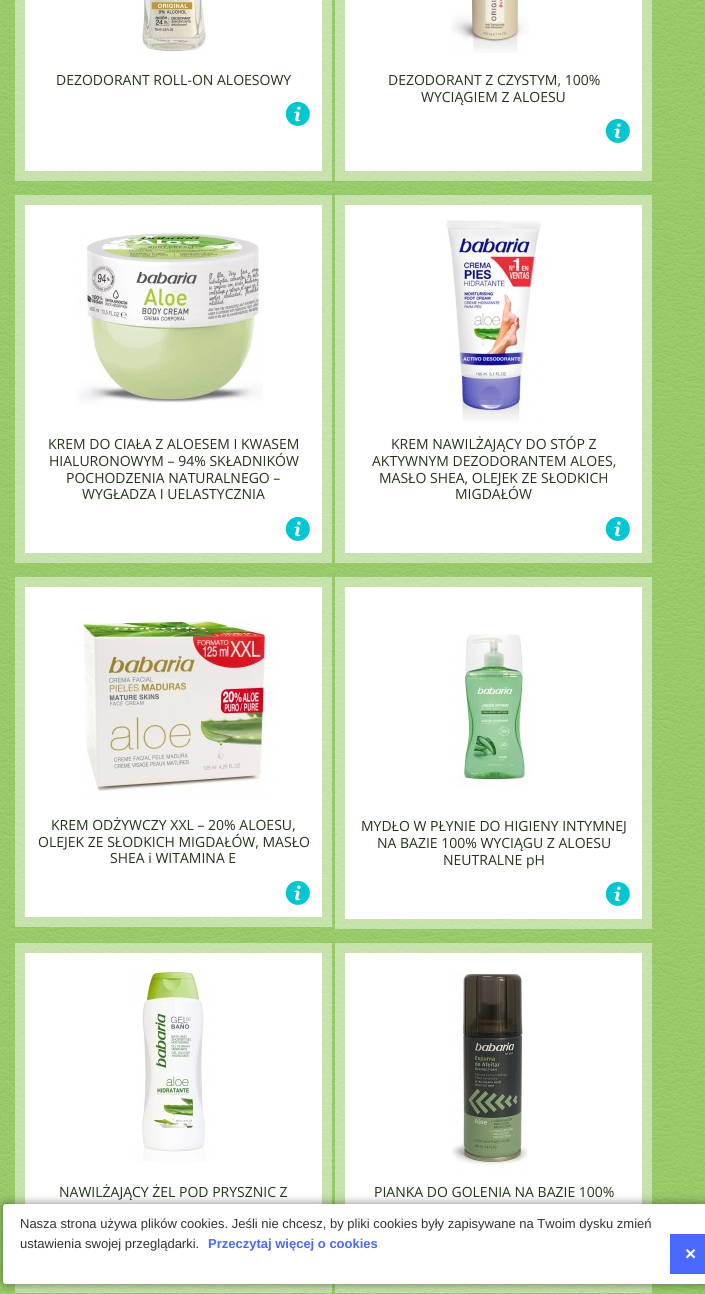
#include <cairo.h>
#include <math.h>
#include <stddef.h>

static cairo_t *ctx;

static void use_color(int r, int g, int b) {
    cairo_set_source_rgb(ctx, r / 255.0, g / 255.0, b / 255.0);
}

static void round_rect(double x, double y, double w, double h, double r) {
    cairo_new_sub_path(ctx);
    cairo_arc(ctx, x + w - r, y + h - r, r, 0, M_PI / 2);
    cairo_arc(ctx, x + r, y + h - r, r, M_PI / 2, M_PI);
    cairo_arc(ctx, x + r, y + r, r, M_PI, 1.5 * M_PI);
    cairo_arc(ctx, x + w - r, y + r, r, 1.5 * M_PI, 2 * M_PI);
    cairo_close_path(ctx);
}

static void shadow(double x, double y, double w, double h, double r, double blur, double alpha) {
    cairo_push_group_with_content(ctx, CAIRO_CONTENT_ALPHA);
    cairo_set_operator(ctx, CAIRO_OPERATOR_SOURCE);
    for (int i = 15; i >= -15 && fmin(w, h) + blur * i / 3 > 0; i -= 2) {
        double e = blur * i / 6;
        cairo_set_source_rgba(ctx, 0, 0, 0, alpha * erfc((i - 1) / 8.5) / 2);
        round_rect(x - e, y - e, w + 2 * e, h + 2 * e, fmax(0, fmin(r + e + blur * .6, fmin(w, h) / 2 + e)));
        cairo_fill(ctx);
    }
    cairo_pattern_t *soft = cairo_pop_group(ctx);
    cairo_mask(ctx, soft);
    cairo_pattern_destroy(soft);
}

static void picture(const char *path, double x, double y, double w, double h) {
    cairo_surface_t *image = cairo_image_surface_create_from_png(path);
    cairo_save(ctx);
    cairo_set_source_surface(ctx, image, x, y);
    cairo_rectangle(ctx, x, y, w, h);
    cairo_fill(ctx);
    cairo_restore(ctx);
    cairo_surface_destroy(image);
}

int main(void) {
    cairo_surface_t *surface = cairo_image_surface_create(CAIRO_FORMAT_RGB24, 705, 1294);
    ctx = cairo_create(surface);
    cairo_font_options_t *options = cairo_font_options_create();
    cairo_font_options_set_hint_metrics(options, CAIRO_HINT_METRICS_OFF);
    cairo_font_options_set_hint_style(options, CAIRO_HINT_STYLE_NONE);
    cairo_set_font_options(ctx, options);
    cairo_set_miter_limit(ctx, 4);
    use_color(255, 255, 255);
    cairo_paint(ctx);
    picture("img1.png", 0, 0, 705, 1294);
    cairo_set_source_rgba(ctx, 1, 1, 1, 0.45);
    cairo_rectangle(ctx, 15, 0, 317, 181);
    cairo_fill(ctx);
    use_color(255, 255, 255);
    cairo_rectangle(ctx, 25, 0, 297, 171);
    cairo_fill(ctx);
    picture("img2.png", 137, 0, 71, 53);
    cairo_select_font_face(ctx, "Open Sans", CAIRO_FONT_SLANT_NORMAL, CAIRO_FONT_WEIGHT_NORMAL);
    cairo_set_font_size(ctx, 14);
    use_color(36, 53, 25);
    cairo_move_to(ctx, 56, 85);
    cairo_show_text(ctx, "DEZODORANT ROLL-ON ALOESOWY");
    picture("img3.png", 285, 101, 25, 25);
    cairo_set_source_rgba(ctx, 1, 1, 1, 0.45);
    cairo_rectangle(ctx, 335, 0, 317, 181);
    cairo_fill(ctx);
    use_color(255, 255, 255);
    cairo_rectangle(ctx, 345, 0, 297, 171);
    cairo_fill(ctx);
    picture("img4.png", 450, 0, 79, 53);
    use_color(36, 53, 25);
    cairo_move_to(ctx, 388, 85);
    cairo_show_text(ctx, "DEZODORANT Z CZYSTYM, 100%");
    cairo_move_to(ctx, 421, 102);
    cairo_show_text(ctx, "WYCIĄGIEM Z ALOESU");
    picture("img3.png", 605, 118, 25, 25);
    cairo_set_source_rgba(ctx, 1, 1, 1, 0.45);
    cairo_rectangle(ctx, 15, 195, 317, 368);
    cairo_fill(ctx);
    use_color(255, 255, 255);
    cairo_rectangle(ctx, 25, 205, 297, 348);
    cairo_fill(ctx);
    picture("img5.png", 76, 231, 187, 177);
    use_color(36, 53, 25);
    cairo_move_to(ctx, 48, 449);
    cairo_show_text(ctx, "KREM DO CIAŁA Z ALOESEM I KWASEM");
    cairo_move_to(ctx, 49, 466);
    cairo_show_text(ctx, "HIALURONOWYM – 94% SKŁADNIKÓW");
    cairo_move_to(ctx, 66, 483);
    cairo_show_text(ctx, "POCHODZENIA NATURALNEGO –");
    cairo_move_to(ctx, 82, 499);
    cairo_show_text(ctx, "WYGŁADZA I UELASTYCZNIA");
    picture("img3.png", 285, 516, 25, 25);
    cairo_set_source_rgba(ctx, 1, 1, 1, 0.45);
    cairo_rectangle(ctx, 335, 195, 317, 368);
    cairo_fill(ctx);
    use_color(255, 255, 255);
    cairo_rectangle(ctx, 345, 205, 297, 348);
    cairo_fill(ctx);
    picture("img6.png", 445, 220, 101, 204);
    use_color(36, 53, 25);
    cairo_move_to(ctx, 391, 449);
    cairo_show_text(ctx, "KREM NAWILŻAJĄCY DO STÓP Z");
    cairo_move_to(ctx, 372, 466);
    cairo_show_text(ctx, "AKTYWNYM DEZODORANTEM ALOES,");
    cairo_move_to(ctx, 379, 483);
    cairo_show_text(ctx, "MASŁO SHEA, OLEJEK ZE SŁODKICH");
    cairo_move_to(ctx, 455, 499);
    cairo_show_text(ctx, "MIGDAŁÓW");
    picture("img3.png", 605, 516, 25, 25);
    cairo_set_source_rgba(ctx, 1, 1, 1, 0.45);
    cairo_rectangle(ctx, 15, 577, 317, 350);
    cairo_fill(ctx);
    use_color(255, 255, 255);
    cairo_rectangle(ctx, 25, 587, 297, 330);
    cairo_fill(ctx);
    picture("img7.png", 78, 620, 199, 176);
    use_color(36, 53, 25);
    cairo_move_to(ctx, 51, 830);
    cairo_show_text(ctx, "KREM ODŻYWCZY XXL – 20% ALOESU,");
    cairo_move_to(ctx, 38, 847);
    cairo_show_text(ctx, "OLEJEK ZE SŁODKICH MIGDAŁÓW, MASŁO");
    cairo_move_to(ctx, 110, 863);
    cairo_show_text(ctx, "SHEA i WITAMINA E");
    picture("img3.png", 285, 880, 25, 25);
    cairo_set_source_rgba(ctx, 1, 1, 1, 0.45);
    cairo_rectangle(ctx, 335, 577, 317, 352);
    cairo_fill(ctx);
    use_color(255, 255, 255);
    cairo_rectangle(ctx, 345, 587, 297, 332);
    cairo_fill(ctx);
    picture("img8.png", 453, 634, 78, 154);
    use_color(36, 53, 25);
    cairo_move_to(ctx, 361, 831);
    cairo_show_text(ctx, "MYDŁO W PŁYNIE DO HIGIENY INTYMNEJ");
    cairo_move_to(ctx, 377, 848);
    cairo_show_text(ctx, "NA BAZIE 100% WYCIĄGU Z ALOESU");
    cairo_move_to(ctx, 443, 865);
    cairo_show_text(ctx, "NEUTRALNE pH");
    picture("img3.png", 605, 881, 25, 25);
    cairo_set_source_rgba(ctx, 1, 1, 1, 0.45);
    cairo_rectangle(ctx, 15, 943, 317, 350);
    cairo_fill(ctx);
    use_color(255, 255, 255);
    cairo_rectangle(ctx, 25, 953, 297, 251);
    cairo_fill(ctx);
    picture("img9.png", 133, 964, 77, 198);
    use_color(36, 53, 25);
    cairo_move_to(ctx, 59, 1197);
    cairo_show_text(ctx, "NAWILŻAJĄCY ŻEL POD PRYSZNIC Z");
    cairo_set_source_rgba(ctx, 1, 1, 1, 0.45);
    cairo_rectangle(ctx, 335, 943, 317, 350);
    cairo_fill(ctx);
    use_color(255, 255, 255);
    cairo_rectangle(ctx, 345, 953, 297, 251);
    cairo_fill(ctx);
    picture("img10.png", 451, 972, 77, 200);
    use_color(36, 53, 25);
    cairo_move_to(ctx, 374, 1197);
    cairo_show_text(ctx, "PIANKA DO GOLENIA NA BAZIE 100%");
    use_color(0, 0, 0);
    shadow(3, 1204, 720, 80, 3, 5, 0.5);
    use_color(255, 255, 255);
    round_rect(3, 1204, 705, 80, 3);
    cairo_fill(ctx);
    cairo_select_font_face(ctx, "Liberation Sans", CAIRO_FONT_SLANT_NORMAL, CAIRO_FONT_WEIGHT_NORMAL);
    cairo_set_font_size(ctx, 13);
    use_color(51, 51, 51);
    cairo_move_to(ctx, 20, 1228);
    cairo_show_text(ctx, "Nasza strona używa plików cookies. Jeśli nie chcesz, by pliki cookies były zapisywane na Twoim dysku zmień");
    cairo_move_to(ctx, 20, 1248);
    cairo_show_text(ctx, "ustawienia swojej przeglądarki.");
    cairo_select_font_face(ctx, "Liberation Sans", CAIRO_FONT_SLANT_NORMAL, CAIRO_FONT_WEIGHT_BOLD);
    use_color(73, 105, 255);
    cairo_move_to(ctx, 208, 1248);
    cairo_show_text(ctx, "Przeczytaj więcej o cookies");
    cairo_rectangle(ctx, 670, 1234, 35, 40);
    cairo_fill(ctx);
    cairo_set_font_size(ctx, 19);
    use_color(255, 255, 255);
    cairo_move_to(ctx, 685, 1260);
    cairo_show_text(ctx, "×");
    cairo_surface_write_to_png(surface, "result.png");
    cairo_font_options_destroy(options);
    cairo_destroy(ctx);
    cairo_surface_destroy(surface);
    return 0;
}
